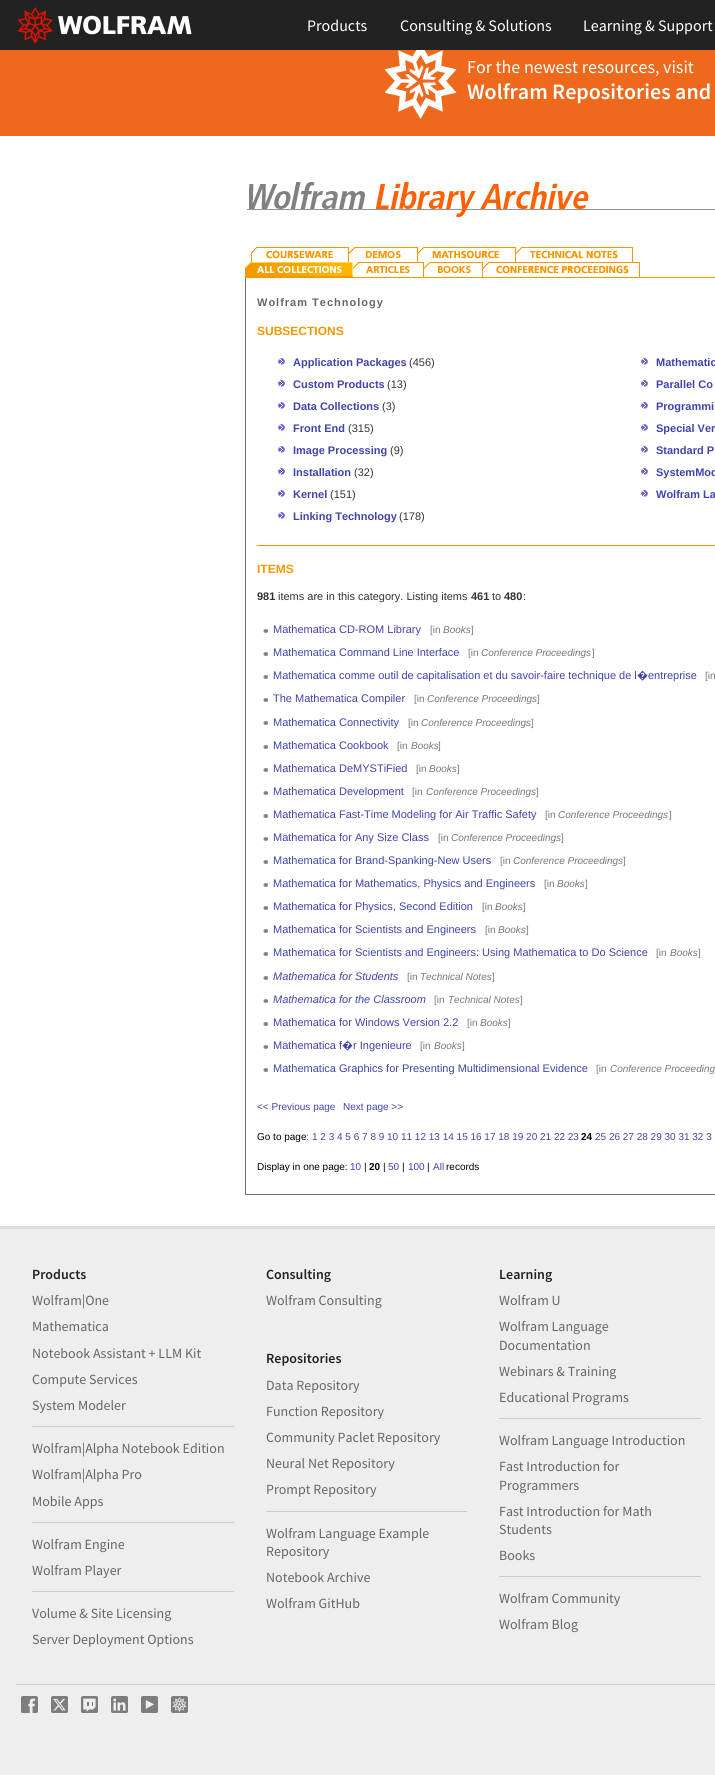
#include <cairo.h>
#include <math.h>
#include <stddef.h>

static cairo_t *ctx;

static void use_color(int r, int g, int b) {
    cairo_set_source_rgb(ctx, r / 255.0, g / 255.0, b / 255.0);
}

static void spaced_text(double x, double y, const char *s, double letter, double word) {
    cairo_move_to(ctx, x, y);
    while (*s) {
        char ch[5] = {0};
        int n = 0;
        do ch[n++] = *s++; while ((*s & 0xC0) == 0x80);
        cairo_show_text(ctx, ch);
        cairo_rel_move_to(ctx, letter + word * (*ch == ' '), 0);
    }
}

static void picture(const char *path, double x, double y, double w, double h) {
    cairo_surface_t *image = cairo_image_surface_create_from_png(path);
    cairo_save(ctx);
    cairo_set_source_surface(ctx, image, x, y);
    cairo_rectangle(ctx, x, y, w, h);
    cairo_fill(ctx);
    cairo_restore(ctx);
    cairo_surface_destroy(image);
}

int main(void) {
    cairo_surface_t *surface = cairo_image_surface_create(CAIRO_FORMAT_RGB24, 715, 1775);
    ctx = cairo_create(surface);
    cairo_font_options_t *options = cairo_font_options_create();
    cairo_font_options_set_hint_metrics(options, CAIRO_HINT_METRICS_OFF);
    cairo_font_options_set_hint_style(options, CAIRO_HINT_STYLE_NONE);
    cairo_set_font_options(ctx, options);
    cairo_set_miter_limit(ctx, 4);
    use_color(255, 255, 255);
    cairo_paint(ctx);
    use_color(34, 34, 34);
    cairo_rectangle(ctx, 0, 0, 715, 50);
    cairo_fill(ctx);
    picture("img1.png", 17, 7, 175, 37);
    cairo_select_font_face(ctx, "Source Sans Pro", CAIRO_FONT_SLANT_NORMAL, CAIRO_FONT_WEIGHT_NORMAL);
    cairo_set_font_size(ctx, 16);
    use_color(255, 255, 255);
    cairo_move_to(ctx, 307, 31);
    cairo_show_text(ctx, "Products");
    cairo_move_to(ctx, 400, 31);
    cairo_show_text(ctx, "Consulting & Solutions");
    cairo_move_to(ctx, 583, 31);
    cairo_show_text(ctx, "Learning & Support");
    use_color(239, 105, 29);
    cairo_rectangle(ctx, 0, 50, 715, 86);
    cairo_fill(ctx);
    picture("img2.png", 385, 50, 72, 69);
    cairo_set_font_size(ctx, 18);
    use_color(255, 255, 255);
    cairo_move_to(ctx, 467, 73);
    cairo_show_text(ctx, "For the newest resources, visit");
    cairo_select_font_face(ctx, "Source Sans Pro SemiBold", CAIRO_FONT_SLANT_NORMAL, CAIRO_FONT_WEIGHT_NORMAL);
    cairo_set_font_size(ctx, 22);
    cairo_move_to(ctx, 467, 99);
    cairo_show_text(ctx, "Wolfram Repositories and");
    picture("img3.png", 247, 182, 468, 35);
    picture("img4.png", 251, 247, 98, 15);
    picture("img5.png", 349, 247, 69, 15);
    picture("img6.png", 418, 247, 98, 15);
    picture("img7.png", 516, 247, 117, 15);
    picture("img8.png", 245, 262, 108, 16);
    picture("img9.png", 353, 262, 71, 16);
    picture("img10.png", 424, 262, 59, 16);
    picture("img11.png", 483, 262, 157, 16);
    use_color(245, 152, 0);
    cairo_rectangle(ctx, 640, 277, 75, 1);
    cairo_fill(ctx);
    use_color(111, 111, 111);
    cairo_rectangle(ctx, 245, 278, 1, 917);
    cairo_fill(ctx);
    cairo_select_font_face(ctx, "Liberation Sans", CAIRO_FONT_SLANT_NORMAL, CAIRO_FONT_WEIGHT_BOLD);
    cairo_set_font_size(ctx, 11);
    use_color(102, 102, 102);
    spaced_text(257, 306, "Wolfram Technology", 1, 0);
    cairo_set_font_size(ctx, 12);
    use_color(245, 152, 0);
    cairo_move_to(ctx, 257, 335);
    cairo_show_text(ctx, "SUBSECTIONS");
    picture("img12.png", 278, 358, 7, 7);
    cairo_set_font_size(ctx, 11);
    use_color(66, 66, 173);
    cairo_move_to(ctx, 293, 366);
    cairo_show_text(ctx, "Application Packages");
    cairo_select_font_face(ctx, "Liberation Sans", CAIRO_FONT_SLANT_NORMAL, CAIRO_FONT_WEIGHT_NORMAL);
    use_color(51, 51, 51);
    cairo_move_to(ctx, 409, 366);
    cairo_show_text(ctx, "(456)");
    picture("img12.png", 641, 358, 7, 7);
    cairo_select_font_face(ctx, "Liberation Sans", CAIRO_FONT_SLANT_NORMAL, CAIRO_FONT_WEIGHT_BOLD);
    use_color(66, 66, 173);
    cairo_move_to(ctx, 656, 366);
    cairo_show_text(ctx, "Mathematic");
    picture("img12.png", 278, 380, 7, 7);
    cairo_move_to(ctx, 293, 388);
    cairo_show_text(ctx, "Custom Products");
    cairo_select_font_face(ctx, "Liberation Sans", CAIRO_FONT_SLANT_NORMAL, CAIRO_FONT_WEIGHT_NORMAL);
    use_color(51, 51, 51);
    cairo_move_to(ctx, 387, 388);
    cairo_show_text(ctx, "(13)");
    picture("img12.png", 641, 380, 7, 7);
    cairo_select_font_face(ctx, "Liberation Sans", CAIRO_FONT_SLANT_NORMAL, CAIRO_FONT_WEIGHT_BOLD);
    use_color(66, 66, 173);
    cairo_move_to(ctx, 656, 388);
    cairo_show_text(ctx, "Parallel Co");
    picture("img12.png", 278, 402, 7, 7);
    cairo_move_to(ctx, 293, 410);
    cairo_show_text(ctx, "Data Collections");
    cairo_select_font_face(ctx, "Liberation Sans", CAIRO_FONT_SLANT_NORMAL, CAIRO_FONT_WEIGHT_NORMAL);
    use_color(51, 51, 51);
    cairo_move_to(ctx, 382, 410);
    cairo_show_text(ctx, "(3)");
    picture("img12.png", 641, 402, 7, 7);
    cairo_select_font_face(ctx, "Liberation Sans", CAIRO_FONT_SLANT_NORMAL, CAIRO_FONT_WEIGHT_BOLD);
    use_color(66, 66, 173);
    cairo_move_to(ctx, 656, 410);
    cairo_show_text(ctx, "Programmi");
    picture("img12.png", 278, 424, 7, 7);
    cairo_move_to(ctx, 293, 432);
    cairo_show_text(ctx, "Front End");
    cairo_select_font_face(ctx, "Liberation Sans", CAIRO_FONT_SLANT_NORMAL, CAIRO_FONT_WEIGHT_NORMAL);
    use_color(51, 51, 51);
    cairo_move_to(ctx, 348, 432);
    cairo_show_text(ctx, "(315)");
    picture("img12.png", 641, 424, 7, 7);
    cairo_select_font_face(ctx, "Liberation Sans", CAIRO_FONT_SLANT_NORMAL, CAIRO_FONT_WEIGHT_BOLD);
    use_color(66, 66, 173);
    cairo_move_to(ctx, 656, 432);
    cairo_show_text(ctx, "Special Ver");
    picture("img12.png", 278, 446, 7, 7);
    cairo_move_to(ctx, 293, 454);
    cairo_show_text(ctx, "Image Processing");
    cairo_select_font_face(ctx, "Liberation Sans", CAIRO_FONT_SLANT_NORMAL, CAIRO_FONT_WEIGHT_NORMAL);
    use_color(51, 51, 51);
    cairo_move_to(ctx, 390, 454);
    cairo_show_text(ctx, "(9)");
    picture("img12.png", 641, 446, 7, 7);
    cairo_select_font_face(ctx, "Liberation Sans", CAIRO_FONT_SLANT_NORMAL, CAIRO_FONT_WEIGHT_BOLD);
    use_color(66, 66, 173);
    cairo_move_to(ctx, 656, 454);
    cairo_show_text(ctx, "Standard P");
    picture("img12.png", 278, 468, 7, 7);
    cairo_move_to(ctx, 293, 476);
    cairo_show_text(ctx, "Installation");
    cairo_select_font_face(ctx, "Liberation Sans", CAIRO_FONT_SLANT_NORMAL, CAIRO_FONT_WEIGHT_NORMAL);
    use_color(51, 51, 51);
    cairo_move_to(ctx, 354, 476);
    cairo_show_text(ctx, "(32)");
    picture("img12.png", 641, 468, 7, 7);
    cairo_select_font_face(ctx, "Liberation Sans", CAIRO_FONT_SLANT_NORMAL, CAIRO_FONT_WEIGHT_BOLD);
    use_color(66, 66, 173);
    cairo_move_to(ctx, 656, 476);
    cairo_show_text(ctx, "SystemMod");
    picture("img12.png", 278, 490, 7, 7);
    cairo_move_to(ctx, 293, 498);
    cairo_show_text(ctx, "Kernel");
    cairo_select_font_face(ctx, "Liberation Sans", CAIRO_FONT_SLANT_NORMAL, CAIRO_FONT_WEIGHT_NORMAL);
    use_color(51, 51, 51);
    cairo_move_to(ctx, 330, 498);
    cairo_show_text(ctx, "(151)");
    picture("img12.png", 641, 490, 7, 7);
    cairo_select_font_face(ctx, "Liberation Sans", CAIRO_FONT_SLANT_NORMAL, CAIRO_FONT_WEIGHT_BOLD);
    use_color(66, 66, 173);
    cairo_move_to(ctx, 656, 498);
    cairo_show_text(ctx, "Wolfram La");
    picture("img12.png", 278, 512, 7, 7);
    cairo_move_to(ctx, 293, 520);
    cairo_show_text(ctx, "Linking Technology");
    cairo_select_font_face(ctx, "Liberation Sans", CAIRO_FONT_SLANT_NORMAL, CAIRO_FONT_WEIGHT_NORMAL);
    use_color(51, 51, 51);
    cairo_move_to(ctx, 399, 520);
    cairo_show_text(ctx, "(178)");
    use_color(245, 152, 0);
    cairo_rectangle(ctx, 257, 545, 458, 1);
    cairo_fill(ctx);
    cairo_select_font_face(ctx, "Liberation Sans", CAIRO_FONT_SLANT_NORMAL, CAIRO_FONT_WEIGHT_BOLD);
    cairo_set_font_size(ctx, 12);
    cairo_move_to(ctx, 257, 573);
    cairo_show_text(ctx, "ITEMS");
    cairo_set_font_size(ctx, 11);
    use_color(51, 51, 51);
    cairo_move_to(ctx, 257, 600);
    cairo_show_text(ctx, "981");
    cairo_select_font_face(ctx, "Liberation Sans", CAIRO_FONT_SLANT_NORMAL, CAIRO_FONT_WEIGHT_NORMAL);
    cairo_move_to(ctx, 278, 600);
    cairo_show_text(ctx, "items are in this category. Listing items");
    cairo_select_font_face(ctx, "Liberation Sans", CAIRO_FONT_SLANT_NORMAL, CAIRO_FONT_WEIGHT_BOLD);
    cairo_move_to(ctx, 471, 600);
    cairo_show_text(ctx, "461");
    cairo_select_font_face(ctx, "Liberation Sans", CAIRO_FONT_SLANT_NORMAL, CAIRO_FONT_WEIGHT_NORMAL);
    cairo_move_to(ctx, 492, 600);
    cairo_show_text(ctx, "to");
    cairo_select_font_face(ctx, "Liberation Sans", CAIRO_FONT_SLANT_NORMAL, CAIRO_FONT_WEIGHT_BOLD);
    cairo_move_to(ctx, 504, 600);
    cairo_show_text(ctx, "480");
    cairo_select_font_face(ctx, "Liberation Sans", CAIRO_FONT_SLANT_NORMAL, CAIRO_FONT_WEIGHT_NORMAL);
    cairo_move_to(ctx, 523, 600);
    cairo_show_text(ctx, ":");
    picture("img13.png", 263, 629, 5, 4);
    use_color(66, 66, 173);
    cairo_move_to(ctx, 273, 633);
    cairo_show_text(ctx, "Mathematica CD-ROM Library");
    cairo_set_font_size(ctx, 10);
    use_color(119, 119, 119);
    cairo_move_to(ctx, 430, 633);
    cairo_show_text(ctx, "[in");
    cairo_select_font_face(ctx, "Liberation Sans", CAIRO_FONT_SLANT_ITALIC, CAIRO_FONT_WEIGHT_NORMAL);
    cairo_move_to(ctx, 443, 633);
    cairo_show_text(ctx, "Books");
    cairo_select_font_face(ctx, "Liberation Sans", CAIRO_FONT_SLANT_NORMAL, CAIRO_FONT_WEIGHT_NORMAL);
    cairo_move_to(ctx, 471, 633);
    cairo_show_text(ctx, "]");
    picture("img13.png", 263, 652, 5, 4);
    cairo_set_font_size(ctx, 11);
    use_color(66, 66, 173);
    cairo_move_to(ctx, 273, 656);
    cairo_show_text(ctx, "Mathematica Command Line Interface");
    cairo_set_font_size(ctx, 10);
    use_color(119, 119, 119);
    cairo_move_to(ctx, 468, 656);
    cairo_show_text(ctx, "[in");
    cairo_select_font_face(ctx, "Liberation Sans", CAIRO_FONT_SLANT_ITALIC, CAIRO_FONT_WEIGHT_NORMAL);
    cairo_move_to(ctx, 481, 656);
    cairo_show_text(ctx, "Conference Proceedings");
    cairo_select_font_face(ctx, "Liberation Sans", CAIRO_FONT_SLANT_NORMAL, CAIRO_FONT_WEIGHT_NORMAL);
    cairo_move_to(ctx, 592, 656);
    cairo_show_text(ctx, "]");
    picture("img13.png", 263, 675, 5, 4);
    cairo_set_font_size(ctx, 11);
    use_color(66, 66, 173);
    cairo_move_to(ctx, 273, 679);
    cairo_show_text(ctx, "Mathematica comme outil de capitalisation et du savoir-faire technique de l");
    cairo_select_font_face(ctx, "Noto Sans", CAIRO_FONT_SLANT_NORMAL, CAIRO_FONT_WEIGHT_NORMAL);
    cairo_move_to(ctx, 637, 679);
    cairo_show_text(ctx, "�");
    cairo_select_font_face(ctx, "Liberation Sans", CAIRO_FONT_SLANT_NORMAL, CAIRO_FONT_WEIGHT_NORMAL);
    cairo_move_to(ctx, 648, 679);
    cairo_show_text(ctx, "entreprise");
    cairo_set_font_size(ctx, 10);
    use_color(119, 119, 119);
    cairo_move_to(ctx, 705, 679);
    cairo_show_text(ctx, "[in");
    picture("img13.png", 263, 698, 5, 4);
    cairo_set_font_size(ctx, 11);
    use_color(66, 66, 173);
    cairo_move_to(ctx, 273, 702);
    cairo_show_text(ctx, "The Mathematica Compiler");
    cairo_set_font_size(ctx, 10);
    use_color(119, 119, 119);
    cairo_move_to(ctx, 414, 702);
    cairo_show_text(ctx, "[in");
    cairo_select_font_face(ctx, "Liberation Sans", CAIRO_FONT_SLANT_ITALIC, CAIRO_FONT_WEIGHT_NORMAL);
    cairo_move_to(ctx, 427, 702);
    cairo_show_text(ctx, "Conference Proceedings");
    cairo_select_font_face(ctx, "Liberation Sans", CAIRO_FONT_SLANT_NORMAL, CAIRO_FONT_WEIGHT_NORMAL);
    cairo_move_to(ctx, 537, 702);
    cairo_show_text(ctx, "]");
    picture("img13.png", 263, 721, 5, 4);
    cairo_set_font_size(ctx, 11);
    use_color(66, 66, 173);
    cairo_move_to(ctx, 273, 726);
    cairo_show_text(ctx, "Mathematica Connectivity");
    cairo_set_font_size(ctx, 10);
    use_color(119, 119, 119);
    cairo_move_to(ctx, 408, 726);
    cairo_show_text(ctx, "[in");
    cairo_select_font_face(ctx, "Liberation Sans", CAIRO_FONT_SLANT_ITALIC, CAIRO_FONT_WEIGHT_NORMAL);
    cairo_move_to(ctx, 421, 726);
    cairo_show_text(ctx, "Conference Proceedings");
    cairo_select_font_face(ctx, "Liberation Sans", CAIRO_FONT_SLANT_NORMAL, CAIRO_FONT_WEIGHT_NORMAL);
    cairo_move_to(ctx, 531, 726);
    cairo_show_text(ctx, "]");
    picture("img13.png", 263, 745, 5, 4);
    cairo_set_font_size(ctx, 11);
    use_color(66, 66, 173);
    cairo_move_to(ctx, 273, 749);
    cairo_show_text(ctx, "Mathematica Cookbook");
    cairo_set_font_size(ctx, 10);
    use_color(119, 119, 119);
    cairo_move_to(ctx, 397, 749);
    cairo_show_text(ctx, "[in");
    cairo_select_font_face(ctx, "Liberation Sans", CAIRO_FONT_SLANT_ITALIC, CAIRO_FONT_WEIGHT_NORMAL);
    cairo_move_to(ctx, 411, 749);
    cairo_show_text(ctx, "Books");
    cairo_select_font_face(ctx, "Liberation Sans", CAIRO_FONT_SLANT_NORMAL, CAIRO_FONT_WEIGHT_NORMAL);
    cairo_move_to(ctx, 438, 749);
    cairo_show_text(ctx, "]");
    picture("img13.png", 263, 768, 5, 4);
    cairo_set_font_size(ctx, 11);
    use_color(66, 66, 173);
    cairo_move_to(ctx, 273, 772);
    cairo_show_text(ctx, "Mathematica DeMYSTiFied");
    cairo_set_font_size(ctx, 10);
    use_color(119, 119, 119);
    cairo_move_to(ctx, 416, 772);
    cairo_show_text(ctx, "[in");
    cairo_select_font_face(ctx, "Liberation Sans", CAIRO_FONT_SLANT_ITALIC, CAIRO_FONT_WEIGHT_NORMAL);
    cairo_move_to(ctx, 429, 772);
    cairo_show_text(ctx, "Books");
    cairo_select_font_face(ctx, "Liberation Sans", CAIRO_FONT_SLANT_NORMAL, CAIRO_FONT_WEIGHT_NORMAL);
    cairo_move_to(ctx, 457, 772);
    cairo_show_text(ctx, "]");
    picture("img13.png", 263, 791, 5, 4);
    cairo_set_font_size(ctx, 11);
    use_color(66, 66, 173);
    cairo_move_to(ctx, 273, 795);
    cairo_show_text(ctx, "Mathematica Development");
    cairo_set_font_size(ctx, 10);
    use_color(119, 119, 119);
    cairo_move_to(ctx, 412, 795);
    cairo_show_text(ctx, "[in");
    cairo_select_font_face(ctx, "Liberation Sans", CAIRO_FONT_SLANT_ITALIC, CAIRO_FONT_WEIGHT_NORMAL);
    cairo_move_to(ctx, 426, 795);
    cairo_show_text(ctx, "Conference Proceedings");
    cairo_select_font_face(ctx, "Liberation Sans", CAIRO_FONT_SLANT_NORMAL, CAIRO_FONT_WEIGHT_NORMAL);
    cairo_move_to(ctx, 536, 795);
    cairo_show_text(ctx, "]");
    picture("img13.png", 263, 814, 5, 4);
    cairo_set_font_size(ctx, 11);
    use_color(66, 66, 173);
    cairo_move_to(ctx, 273, 818);
    cairo_show_text(ctx, "Mathematica Fast-Time Modeling for Air Traffic Safety");
    cairo_set_font_size(ctx, 10);
    use_color(119, 119, 119);
    cairo_move_to(ctx, 545, 818);
    cairo_show_text(ctx, "[in");
    cairo_select_font_face(ctx, "Liberation Sans", CAIRO_FONT_SLANT_ITALIC, CAIRO_FONT_WEIGHT_NORMAL);
    cairo_move_to(ctx, 558, 818);
    cairo_show_text(ctx, "Conference Proceedings");
    cairo_select_font_face(ctx, "Liberation Sans", CAIRO_FONT_SLANT_NORMAL, CAIRO_FONT_WEIGHT_NORMAL);
    cairo_move_to(ctx, 669, 818);
    cairo_show_text(ctx, "]");
    picture("img13.png", 263, 837, 5, 4);
    cairo_set_font_size(ctx, 11);
    use_color(66, 66, 173);
    cairo_move_to(ctx, 273, 841);
    cairo_show_text(ctx, "Mathematica for Any Size Class");
    cairo_set_font_size(ctx, 10);
    use_color(119, 119, 119);
    cairo_move_to(ctx, 438, 841);
    cairo_show_text(ctx, "[in");
    cairo_select_font_face(ctx, "Liberation Sans", CAIRO_FONT_SLANT_ITALIC, CAIRO_FONT_WEIGHT_NORMAL);
    cairo_move_to(ctx, 451, 841);
    cairo_show_text(ctx, "Conference Proceedings");
    cairo_select_font_face(ctx, "Liberation Sans", CAIRO_FONT_SLANT_NORMAL, CAIRO_FONT_WEIGHT_NORMAL);
    cairo_move_to(ctx, 561, 841);
    cairo_show_text(ctx, "]");
    picture("img13.png", 263, 860, 5, 4);
    cairo_set_font_size(ctx, 11);
    use_color(66, 66, 173);
    cairo_move_to(ctx, 273, 864);
    cairo_show_text(ctx, "Mathematica for Brand-Spanking-New Users");
    cairo_set_font_size(ctx, 10);
    use_color(119, 119, 119);
    cairo_move_to(ctx, 500, 864);
    cairo_show_text(ctx, "[in");
    cairo_select_font_face(ctx, "Liberation Sans", CAIRO_FONT_SLANT_ITALIC, CAIRO_FONT_WEIGHT_NORMAL);
    cairo_move_to(ctx, 513, 864);
    cairo_show_text(ctx, "Conference Proceedings");
    cairo_select_font_face(ctx, "Liberation Sans", CAIRO_FONT_SLANT_NORMAL, CAIRO_FONT_WEIGHT_NORMAL);
    cairo_move_to(ctx, 623, 864);
    cairo_show_text(ctx, "]");
    picture("img13.png", 263, 883, 5, 4);
    cairo_set_font_size(ctx, 11);
    use_color(66, 66, 173);
    cairo_move_to(ctx, 273, 887);
    cairo_show_text(ctx, "Mathematica for Mathematics, Physics and Engineers");
    cairo_set_font_size(ctx, 10);
    use_color(119, 119, 119);
    cairo_move_to(ctx, 544, 887);
    cairo_show_text(ctx, "[in");
    cairo_select_font_face(ctx, "Liberation Sans", CAIRO_FONT_SLANT_ITALIC, CAIRO_FONT_WEIGHT_NORMAL);
    cairo_move_to(ctx, 557, 887);
    cairo_show_text(ctx, "Books");
    cairo_select_font_face(ctx, "Liberation Sans", CAIRO_FONT_SLANT_NORMAL, CAIRO_FONT_WEIGHT_NORMAL);
    cairo_move_to(ctx, 585, 887);
    cairo_show_text(ctx, "]");
    picture("img13.png", 263, 906, 5, 4);
    cairo_set_font_size(ctx, 11);
    use_color(66, 66, 173);
    cairo_move_to(ctx, 273, 910);
    cairo_show_text(ctx, "Mathematica for Physics, Second Edition");
    cairo_set_font_size(ctx, 10);
    use_color(119, 119, 119);
    cairo_move_to(ctx, 482, 910);
    cairo_show_text(ctx, "[in");
    cairo_select_font_face(ctx, "Liberation Sans", CAIRO_FONT_SLANT_ITALIC, CAIRO_FONT_WEIGHT_NORMAL);
    cairo_move_to(ctx, 495, 910);
    cairo_show_text(ctx, "Books");
    cairo_select_font_face(ctx, "Liberation Sans", CAIRO_FONT_SLANT_NORMAL, CAIRO_FONT_WEIGHT_NORMAL);
    cairo_move_to(ctx, 523, 910);
    cairo_show_text(ctx, "]");
    picture("img13.png", 263, 929, 5, 4);
    cairo_set_font_size(ctx, 11);
    use_color(66, 66, 173);
    cairo_move_to(ctx, 273, 933);
    cairo_show_text(ctx, "Mathematica for Scientists and Engineers");
    cairo_set_font_size(ctx, 10);
    use_color(119, 119, 119);
    cairo_move_to(ctx, 485, 933);
    cairo_show_text(ctx, "[in");
    cairo_select_font_face(ctx, "Liberation Sans", CAIRO_FONT_SLANT_ITALIC, CAIRO_FONT_WEIGHT_NORMAL);
    cairo_move_to(ctx, 498, 933);
    cairo_show_text(ctx, "Books");
    cairo_select_font_face(ctx, "Liberation Sans", CAIRO_FONT_SLANT_NORMAL, CAIRO_FONT_WEIGHT_NORMAL);
    cairo_move_to(ctx, 526, 933);
    cairo_show_text(ctx, "]");
    picture("img13.png", 263, 952, 5, 4);
    cairo_set_font_size(ctx, 11);
    use_color(66, 66, 173);
    cairo_move_to(ctx, 273, 956);
    cairo_show_text(ctx, "Mathematica for Scientists and Engineers: Using Mathematica to Do Science");
    cairo_set_font_size(ctx, 10);
    use_color(119, 119, 119);
    cairo_move_to(ctx, 656, 956);
    cairo_show_text(ctx, "[in");
    cairo_select_font_face(ctx, "Liberation Sans", CAIRO_FONT_SLANT_ITALIC, CAIRO_FONT_WEIGHT_NORMAL);
    cairo_move_to(ctx, 670, 956);
    cairo_show_text(ctx, "Books");
    cairo_select_font_face(ctx, "Liberation Sans", CAIRO_FONT_SLANT_NORMAL, CAIRO_FONT_WEIGHT_NORMAL);
    cairo_move_to(ctx, 698, 956);
    cairo_show_text(ctx, "]");
    picture("img13.png", 263, 976, 5, 4);
    cairo_select_font_face(ctx, "Liberation Sans", CAIRO_FONT_SLANT_ITALIC, CAIRO_FONT_WEIGHT_NORMAL);
    cairo_set_font_size(ctx, 11);
    use_color(66, 66, 173);
    cairo_move_to(ctx, 273, 980);
    cairo_show_text(ctx, "Mathematica for Students");
    cairo_select_font_face(ctx, "Liberation Sans", CAIRO_FONT_SLANT_NORMAL, CAIRO_FONT_WEIGHT_NORMAL);
    cairo_set_font_size(ctx, 10);
    use_color(119, 119, 119);
    cairo_move_to(ctx, 407, 980);
    cairo_show_text(ctx, "[in");
    cairo_select_font_face(ctx, "Liberation Sans", CAIRO_FONT_SLANT_ITALIC, CAIRO_FONT_WEIGHT_NORMAL);
    cairo_move_to(ctx, 420, 980);
    cairo_show_text(ctx, "Technical Notes");
    cairo_select_font_face(ctx, "Liberation Sans", CAIRO_FONT_SLANT_NORMAL, CAIRO_FONT_WEIGHT_NORMAL);
    cairo_move_to(ctx, 492, 980);
    cairo_show_text(ctx, "]");
    picture("img13.png", 263, 999, 5, 4);
    cairo_select_font_face(ctx, "Liberation Sans", CAIRO_FONT_SLANT_ITALIC, CAIRO_FONT_WEIGHT_NORMAL);
    cairo_set_font_size(ctx, 11);
    use_color(66, 66, 173);
    cairo_move_to(ctx, 273, 1003);
    cairo_show_text(ctx, "Mathematica for the Classroom");
    cairo_select_font_face(ctx, "Liberation Sans", CAIRO_FONT_SLANT_NORMAL, CAIRO_FONT_WEIGHT_NORMAL);
    cairo_set_font_size(ctx, 10);
    use_color(119, 119, 119);
    cairo_move_to(ctx, 434, 1003);
    cairo_show_text(ctx, "[in");
    cairo_select_font_face(ctx, "Liberation Sans", CAIRO_FONT_SLANT_ITALIC, CAIRO_FONT_WEIGHT_NORMAL);
    cairo_move_to(ctx, 448, 1003);
    cairo_show_text(ctx, "Technical Notes");
    cairo_select_font_face(ctx, "Liberation Sans", CAIRO_FONT_SLANT_NORMAL, CAIRO_FONT_WEIGHT_NORMAL);
    cairo_move_to(ctx, 520, 1003);
    cairo_show_text(ctx, "]");
    picture("img13.png", 263, 1022, 5, 4);
    cairo_set_font_size(ctx, 11);
    use_color(66, 66, 173);
    cairo_move_to(ctx, 273, 1026);
    cairo_show_text(ctx, "Mathematica for Windows Version 2.2");
    cairo_set_font_size(ctx, 10);
    use_color(119, 119, 119);
    cairo_move_to(ctx, 467, 1026);
    cairo_show_text(ctx, "[in");
    cairo_select_font_face(ctx, "Liberation Sans", CAIRO_FONT_SLANT_ITALIC, CAIRO_FONT_WEIGHT_NORMAL);
    cairo_move_to(ctx, 480, 1026);
    cairo_show_text(ctx, "Books");
    cairo_select_font_face(ctx, "Liberation Sans", CAIRO_FONT_SLANT_NORMAL, CAIRO_FONT_WEIGHT_NORMAL);
    cairo_move_to(ctx, 508, 1026);
    cairo_show_text(ctx, "]");
    picture("img13.png", 263, 1045, 5, 4);
    cairo_set_font_size(ctx, 11);
    use_color(66, 66, 173);
    cairo_move_to(ctx, 273, 1049);
    cairo_show_text(ctx, "Mathematica f");
    cairo_select_font_face(ctx, "Noto Sans", CAIRO_FONT_SLANT_NORMAL, CAIRO_FONT_WEIGHT_NORMAL);
    cairo_move_to(ctx, 342, 1049);
    cairo_show_text(ctx, "�");
    cairo_select_font_face(ctx, "Liberation Sans", CAIRO_FONT_SLANT_NORMAL, CAIRO_FONT_WEIGHT_NORMAL);
    cairo_move_to(ctx, 353, 1049);
    cairo_show_text(ctx, "r Ingenieure");
    cairo_set_font_size(ctx, 10);
    use_color(119, 119, 119);
    cairo_move_to(ctx, 420, 1049);
    cairo_show_text(ctx, "[in");
    cairo_select_font_face(ctx, "Liberation Sans", CAIRO_FONT_SLANT_ITALIC, CAIRO_FONT_WEIGHT_NORMAL);
    cairo_move_to(ctx, 434, 1049);
    cairo_show_text(ctx, "Books");
    cairo_select_font_face(ctx, "Liberation Sans", CAIRO_FONT_SLANT_NORMAL, CAIRO_FONT_WEIGHT_NORMAL);
    cairo_move_to(ctx, 462, 1049);
    cairo_show_text(ctx, "]");
    picture("img13.png", 263, 1068, 5, 4);
    cairo_set_font_size(ctx, 11);
    use_color(66, 66, 173);
    cairo_move_to(ctx, 273, 1072);
    cairo_show_text(ctx, "Mathematica Graphics for Presenting Multidimensional Evidence");
    cairo_set_font_size(ctx, 10);
    use_color(119, 119, 119);
    cairo_move_to(ctx, 596, 1072);
    cairo_show_text(ctx, "[in");
    cairo_select_font_face(ctx, "Liberation Sans", CAIRO_FONT_SLANT_ITALIC, CAIRO_FONT_WEIGHT_NORMAL);
    cairo_move_to(ctx, 610, 1072);
    cairo_show_text(ctx, "Conference Proceeding");
    cairo_select_font_face(ctx, "Liberation Sans", CAIRO_FONT_SLANT_NORMAL, CAIRO_FONT_WEIGHT_NORMAL);
    use_color(66, 66, 173);
    cairo_move_to(ctx, 257, 1110);
    cairo_show_text(ctx, "<< Previous page");
    cairo_move_to(ctx, 343, 1110);
    cairo_show_text(ctx, "Next page >>");
    use_color(0, 0, 0);
    cairo_move_to(ctx, 257, 1140);
    cairo_show_text(ctx, "Go to page:");
    use_color(66, 66, 173);
    cairo_move_to(ctx, 312, 1140);
    cairo_show_text(ctx, "1 2 3 4 5 6 7 8 9 10 11 12 13 14 15 16 17 18 19 20 21 22 23");
    cairo_select_font_face(ctx, "Liberation Sans", CAIRO_FONT_SLANT_NORMAL, CAIRO_FONT_WEIGHT_BOLD);
    use_color(0, 0, 0);
    cairo_move_to(ctx, 581, 1140);
    cairo_show_text(ctx, "24");
    cairo_select_font_face(ctx, "Liberation Sans", CAIRO_FONT_SLANT_NORMAL, CAIRO_FONT_WEIGHT_NORMAL);
    use_color(66, 66, 173);
    cairo_move_to(ctx, 595, 1140);
    cairo_show_text(ctx, "25 26 27 28 29 30 31 32 3");
    use_color(0, 0, 0);
    cairo_move_to(ctx, 257, 1170);
    cairo_show_text(ctx, "Display in one page:");
    use_color(66, 66, 173);
    cairo_move_to(ctx, 350, 1170);
    cairo_show_text(ctx, "10");
    use_color(0, 0, 0);
    cairo_move_to(ctx, 364, 1170);
    cairo_show_text(ctx, "|");
    cairo_select_font_face(ctx, "Liberation Sans", CAIRO_FONT_SLANT_NORMAL, CAIRO_FONT_WEIGHT_BOLD);
    cairo_move_to(ctx, 369, 1170);
    cairo_show_text(ctx, "20");
    cairo_select_font_face(ctx, "Liberation Sans", CAIRO_FONT_SLANT_NORMAL, CAIRO_FONT_WEIGHT_NORMAL);
    cairo_move_to(ctx, 383, 1170);
    cairo_show_text(ctx, "|");
    use_color(66, 66, 173);
    cairo_move_to(ctx, 388, 1170);
    cairo_show_text(ctx, "50");
    use_color(0, 0, 0);
    cairo_move_to(ctx, 402, 1170);
    cairo_show_text(ctx, "|");
    use_color(66, 66, 173);
    cairo_move_to(ctx, 408, 1170);
    cairo_show_text(ctx, "100");
    use_color(0, 0, 0);
    cairo_move_to(ctx, 427, 1170);
    cairo_show_text(ctx, "|");
    use_color(66, 66, 173);
    cairo_move_to(ctx, 433, 1170);
    cairo_show_text(ctx, "All");
    use_color(0, 0, 0);
    cairo_move_to(ctx, 446, 1170);
    cairo_show_text(ctx, "records");
    use_color(111, 111, 111);
    cairo_rectangle(ctx, 246, 1194, 469, 1);
    cairo_fill(ctx);
    use_color(238, 238, 238);
    cairo_rectangle(ctx, 0, 1229, 715, 546);
    cairo_fill(ctx);
    use_color(221, 221, 221);
    cairo_rectangle(ctx, 0, 1226, 715, 3);
    cairo_fill(ctx);
    cairo_select_font_face(ctx, "Source Sans Pro SemiBold", CAIRO_FONT_SLANT_NORMAL, CAIRO_FONT_WEIGHT_NORMAL);
    cairo_set_font_size(ctx, 14);
    use_color(34, 34, 34);
    cairo_move_to(ctx, 32, 1279);
    cairo_show_text(ctx, "Products");
    cairo_select_font_face(ctx, "Source Sans Pro", CAIRO_FONT_SLANT_NORMAL, CAIRO_FONT_WEIGHT_NORMAL);
    use_color(102, 102, 102);
    cairo_move_to(ctx, 32, 1305);
    cairo_show_text(ctx, "Wolfram|One");
    cairo_move_to(ctx, 32, 1331);
    cairo_show_text(ctx, "Mathematica");
    cairo_move_to(ctx, 32, 1358);
    cairo_show_text(ctx, "Notebook Assistant + LLM Kit");
    cairo_move_to(ctx, 32, 1384);
    cairo_show_text(ctx, "Compute Services");
    cairo_move_to(ctx, 32, 1410);
    cairo_show_text(ctx, "System Modeler");
    use_color(204, 204, 204);
    cairo_rectangle(ctx, 32, 1426, 202, 1);
    cairo_fill(ctx);
    use_color(102, 102, 102);
    cairo_move_to(ctx, 32, 1453);
    cairo_show_text(ctx, "Wolfram|Alpha Notebook Edition");
    cairo_move_to(ctx, 32, 1479);
    cairo_show_text(ctx, "Wolfram|Alpha Pro");
    cairo_move_to(ctx, 32, 1506);
    cairo_show_text(ctx, "Mobile Apps");
    use_color(204, 204, 204);
    cairo_rectangle(ctx, 32, 1522, 202, 1);
    cairo_fill(ctx);
    use_color(102, 102, 102);
    cairo_move_to(ctx, 32, 1549);
    cairo_show_text(ctx, "Wolfram Engine");
    cairo_move_to(ctx, 32, 1575);
    cairo_show_text(ctx, "Wolfram Player");
    use_color(204, 204, 204);
    cairo_rectangle(ctx, 32, 1591, 202, 1);
    cairo_fill(ctx);
    use_color(102, 102, 102);
    cairo_move_to(ctx, 32, 1618);
    cairo_show_text(ctx, "Volume & Site Licensing");
    cairo_move_to(ctx, 32, 1644);
    cairo_show_text(ctx, "Server Deployment Options");
    cairo_select_font_face(ctx, "Source Sans Pro SemiBold", CAIRO_FONT_SLANT_NORMAL, CAIRO_FONT_WEIGHT_NORMAL);
    use_color(34, 34, 34);
    cairo_move_to(ctx, 266, 1279);
    cairo_show_text(ctx, "Consulting");
    cairo_select_font_face(ctx, "Source Sans Pro", CAIRO_FONT_SLANT_NORMAL, CAIRO_FONT_WEIGHT_NORMAL);
    use_color(102, 102, 102);
    cairo_move_to(ctx, 266, 1305);
    cairo_show_text(ctx, "Wolfram Consulting");
    cairo_select_font_face(ctx, "Source Sans Pro SemiBold", CAIRO_FONT_SLANT_NORMAL, CAIRO_FONT_WEIGHT_NORMAL);
    use_color(34, 34, 34);
    cairo_move_to(ctx, 266, 1363);
    cairo_show_text(ctx, "Repositories");
    cairo_select_font_face(ctx, "Source Sans Pro", CAIRO_FONT_SLANT_NORMAL, CAIRO_FONT_WEIGHT_NORMAL);
    use_color(102, 102, 102);
    cairo_move_to(ctx, 266, 1390);
    cairo_show_text(ctx, "Data Repository");
    cairo_move_to(ctx, 266, 1416);
    cairo_show_text(ctx, "Function Repository");
    cairo_move_to(ctx, 266, 1442);
    cairo_show_text(ctx, "Community Paclet Repository");
    cairo_move_to(ctx, 266, 1468);
    cairo_show_text(ctx, "Neural Net Repository");
    cairo_move_to(ctx, 266, 1494);
    cairo_show_text(ctx, "Prompt Repository");
    use_color(204, 204, 204);
    cairo_rectangle(ctx, 266, 1511, 201, 1);
    cairo_fill(ctx);
    use_color(102, 102, 102);
    cairo_move_to(ctx, 266, 1538);
    cairo_show_text(ctx, "Wolfram Language Example");
    cairo_move_to(ctx, 266, 1556);
    cairo_show_text(ctx, "Repository");
    cairo_move_to(ctx, 266, 1582);
    cairo_show_text(ctx, "Notebook Archive");
    cairo_move_to(ctx, 266, 1608);
    cairo_show_text(ctx, "Wolfram GitHub");
    cairo_select_font_face(ctx, "Source Sans Pro SemiBold", CAIRO_FONT_SLANT_NORMAL, CAIRO_FONT_WEIGHT_NORMAL);
    use_color(34, 34, 34);
    cairo_move_to(ctx, 499, 1279);
    cairo_show_text(ctx, "Learning");
    cairo_select_font_face(ctx, "Source Sans Pro", CAIRO_FONT_SLANT_NORMAL, CAIRO_FONT_WEIGHT_NORMAL);
    use_color(102, 102, 102);
    cairo_move_to(ctx, 499, 1305);
    cairo_show_text(ctx, "Wolfram U");
    cairo_move_to(ctx, 499, 1331);
    cairo_show_text(ctx, "Wolfram Language");
    cairo_move_to(ctx, 499, 1350);
    cairo_show_text(ctx, "Documentation");
    cairo_move_to(ctx, 499, 1376);
    cairo_show_text(ctx, "Webinars & Training");
    cairo_move_to(ctx, 499, 1402);
    cairo_show_text(ctx, "Educational Programs");
    use_color(204, 204, 204);
    cairo_rectangle(ctx, 499, 1418, 202, 1);
    cairo_fill(ctx);
    use_color(102, 102, 102);
    cairo_move_to(ctx, 499, 1445);
    cairo_show_text(ctx, "Wolfram Language Introduction");
    cairo_move_to(ctx, 499, 1471);
    cairo_show_text(ctx, "Fast Introduction for");
    cairo_move_to(ctx, 499, 1490);
    cairo_show_text(ctx, "Programmers");
    cairo_move_to(ctx, 499, 1516);
    cairo_show_text(ctx, "Fast Introduction for Math");
    cairo_move_to(ctx, 499, 1534);
    cairo_show_text(ctx, "Students");
    cairo_move_to(ctx, 499, 1560);
    cairo_show_text(ctx, "Books");
    use_color(204, 204, 204);
    cairo_rectangle(ctx, 499, 1576, 202, 1);
    cairo_fill(ctx);
    use_color(102, 102, 102);
    cairo_move_to(ctx, 499, 1603);
    cairo_show_text(ctx, "Wolfram Community");
    cairo_move_to(ctx, 499, 1629);
    cairo_show_text(ctx, "Wolfram Blog");
    use_color(204, 204, 204);
    cairo_rectangle(ctx, 16, 1684, 699, 1);
    cairo_fill(ctx);
    picture("img14.png", 21, 1696, 17, 17);
    picture("img15.png", 51, 1696, 17, 17);
    picture("img16.png", 81, 1696, 17, 17);
    picture("img17.png", 111, 1696, 17, 17);
    picture("img18.png", 141, 1696, 17, 17);
    picture("img19.png", 171, 1696, 17, 17);
    cairo_surface_write_to_png(surface, "result.png");
    cairo_font_options_destroy(options);
    cairo_destroy(ctx);
    cairo_surface_destroy(surface);
    return 0;
}
